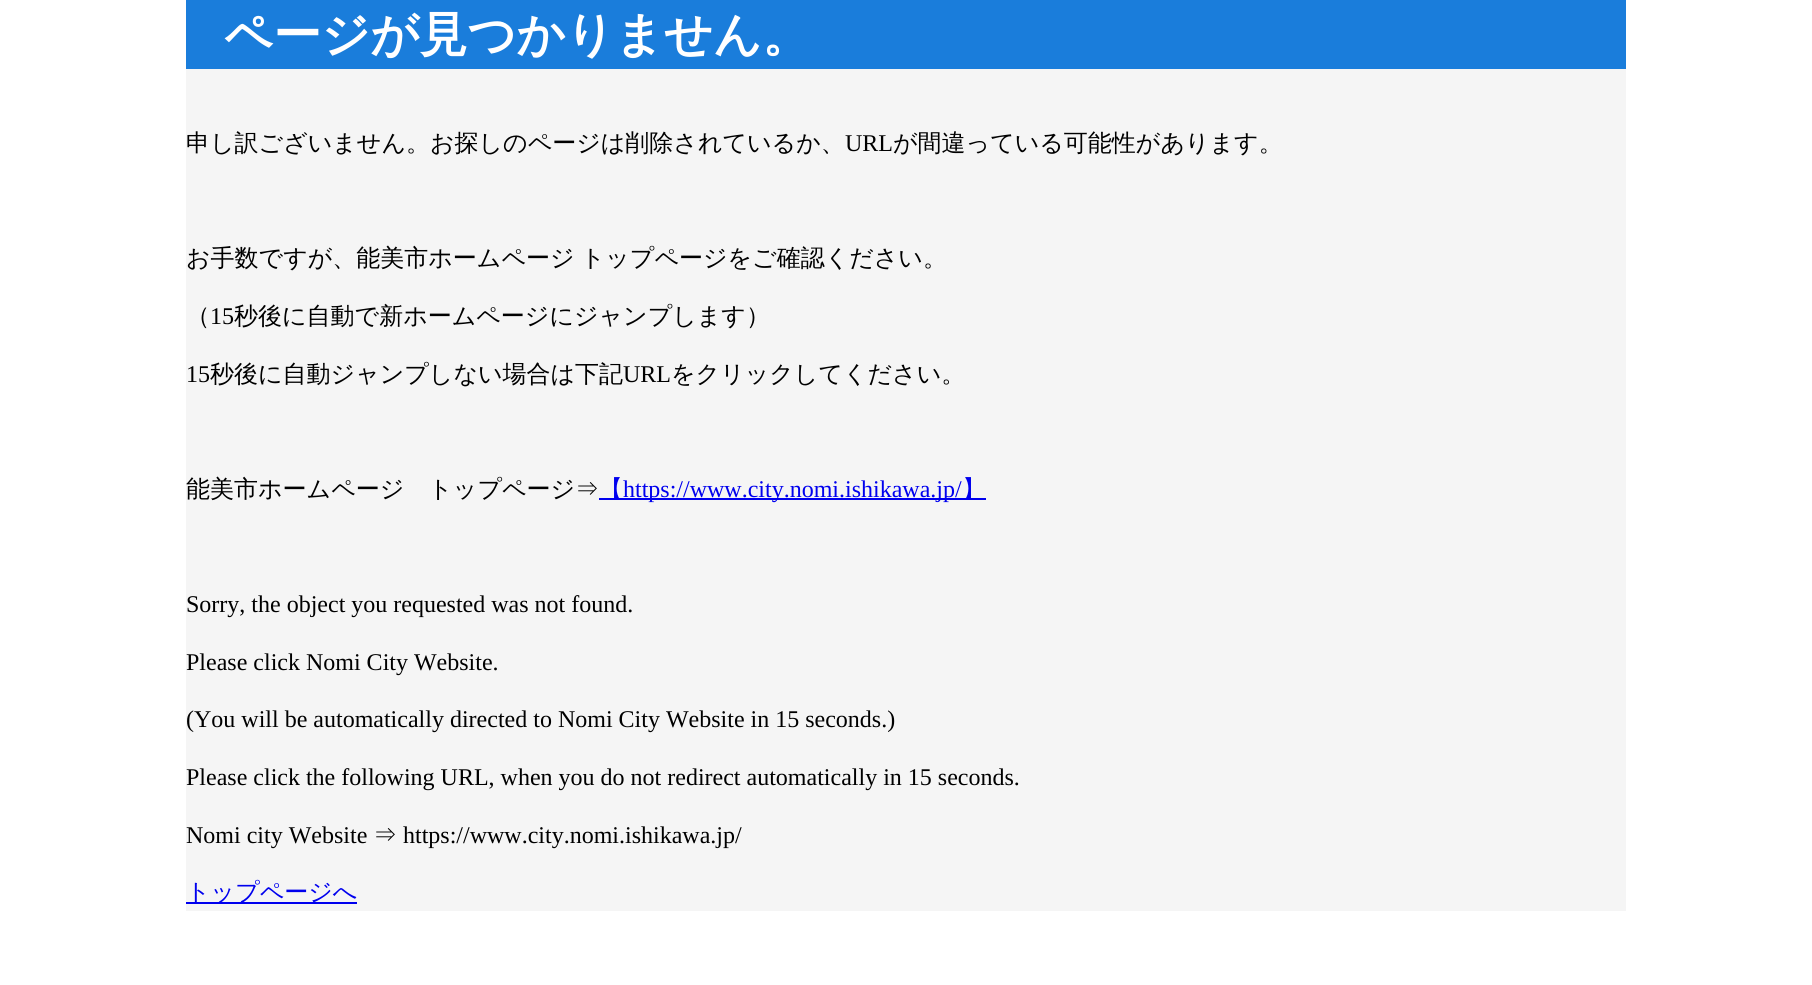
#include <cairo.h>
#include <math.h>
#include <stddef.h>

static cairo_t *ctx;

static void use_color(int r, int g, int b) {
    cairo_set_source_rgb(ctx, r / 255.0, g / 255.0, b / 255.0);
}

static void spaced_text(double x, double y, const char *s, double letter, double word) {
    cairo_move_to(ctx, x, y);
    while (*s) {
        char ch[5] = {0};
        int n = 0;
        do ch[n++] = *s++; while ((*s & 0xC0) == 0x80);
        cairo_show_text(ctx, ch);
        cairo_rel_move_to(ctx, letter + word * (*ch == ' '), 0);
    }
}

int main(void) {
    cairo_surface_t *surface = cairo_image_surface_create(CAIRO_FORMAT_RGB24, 1812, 985);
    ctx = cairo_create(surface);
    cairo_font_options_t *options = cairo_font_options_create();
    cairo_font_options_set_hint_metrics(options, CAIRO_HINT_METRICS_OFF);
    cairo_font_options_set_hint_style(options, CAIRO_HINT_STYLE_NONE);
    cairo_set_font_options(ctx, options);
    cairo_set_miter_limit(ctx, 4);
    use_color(255, 255, 255);
    cairo_paint(ctx);
    use_color(245, 245, 245);
    cairo_rectangle(ctx, 186, 69, 1440, 842);
    cairo_fill(ctx);
    use_color(26, 125, 219);
    cairo_rectangle(ctx, 186, 0, 1440, 69);
    cairo_fill(ctx);
    cairo_select_font_face(ctx, "WenQuanYi Zen Hei", CAIRO_FONT_SLANT_NORMAL, CAIRO_FONT_WEIGHT_BOLD);
    cairo_set_font_size(ctx, 48);
    use_color(255, 255, 255);
    cairo_move_to(ctx, 224, 51);
    cairo_show_text(ctx, "ページが見つかりません。");
    cairo_select_font_face(ctx, "WenQuanYi Zen Hei Medium", CAIRO_FONT_SLANT_NORMAL, CAIRO_FONT_WEIGHT_NORMAL);
    cairo_set_font_size(ctx, 24);
    use_color(0, 0, 0);
    cairo_move_to(ctx, 186, 151);
    cairo_show_text(ctx, "申し訳ございません。お探しのページは削除されているか、");
    cairo_select_font_face(ctx, "Liberation Serif", CAIRO_FONT_SLANT_NORMAL, CAIRO_FONT_WEIGHT_NORMAL);
    cairo_move_to(ctx, 845, 151);
    cairo_show_text(ctx, "URL");
    cairo_select_font_face(ctx, "WenQuanYi Zen Hei Medium", CAIRO_FONT_SLANT_NORMAL, CAIRO_FONT_WEIGHT_NORMAL);
    cairo_move_to(ctx, 893, 151);
    cairo_show_text(ctx, "が間違っている可能性があります。");
    spaced_text(186, 266, "お手数ですが、能美市ホームページ トップページをご確認ください。", 0, -1);
    cairo_move_to(ctx, 186, 324);
    cairo_show_text(ctx, "（");
    cairo_select_font_face(ctx, "Liberation Serif", CAIRO_FONT_SLANT_NORMAL, CAIRO_FONT_WEIGHT_NORMAL);
    cairo_move_to(ctx, 210, 324);
    cairo_show_text(ctx, "15");
    cairo_select_font_face(ctx, "WenQuanYi Zen Hei Medium", CAIRO_FONT_SLANT_NORMAL, CAIRO_FONT_WEIGHT_NORMAL);
    cairo_move_to(ctx, 234, 324);
    cairo_show_text(ctx, "秒後に自動で新ホームページにジャンプします）");
    cairo_select_font_face(ctx, "Liberation Serif", CAIRO_FONT_SLANT_NORMAL, CAIRO_FONT_WEIGHT_NORMAL);
    cairo_move_to(ctx, 186, 382);
    cairo_show_text(ctx, "15");
    cairo_select_font_face(ctx, "WenQuanYi Zen Hei Medium", CAIRO_FONT_SLANT_NORMAL, CAIRO_FONT_WEIGHT_NORMAL);
    cairo_move_to(ctx, 210, 382);
    cairo_show_text(ctx, "秒後に自動ジャンプしない場合は下記");
    cairo_select_font_face(ctx, "Liberation Serif", CAIRO_FONT_SLANT_NORMAL, CAIRO_FONT_WEIGHT_NORMAL);
    cairo_move_to(ctx, 623, 382);
    cairo_show_text(ctx, "URL");
    cairo_select_font_face(ctx, "WenQuanYi Zen Hei Medium", CAIRO_FONT_SLANT_NORMAL, CAIRO_FONT_WEIGHT_NORMAL);
    cairo_move_to(ctx, 671, 382);
    cairo_show_text(ctx, "をクリックしてください。");
    cairo_move_to(ctx, 186, 497);
    cairo_show_text(ctx, "能美市ホームページ　トップページ⇒");
    use_color(0, 0, 238);
    cairo_rectangle(ctx, 599, 498, 387, 2);
    cairo_fill(ctx);
    cairo_move_to(ctx, 599, 497);
    cairo_show_text(ctx, "【");
    cairo_select_font_face(ctx, "Liberation Serif", CAIRO_FONT_SLANT_NORMAL, CAIRO_FONT_WEIGHT_NORMAL);
    cairo_move_to(ctx, 623, 497);
    cairo_show_text(ctx, "https://www.city.nomi.ishikawa.jp/");
    cairo_select_font_face(ctx, "WenQuanYi Zen Hei Medium", CAIRO_FONT_SLANT_NORMAL, CAIRO_FONT_WEIGHT_NORMAL);
    cairo_move_to(ctx, 962, 497);
    cairo_show_text(ctx, "】");
    cairo_select_font_face(ctx, "Liberation Serif", CAIRO_FONT_SLANT_NORMAL, CAIRO_FONT_WEIGHT_NORMAL);
    use_color(0, 0, 0);
    cairo_move_to(ctx, 186, 612);
    cairo_show_text(ctx, "Sorry, the object you requested was not found.");
    cairo_move_to(ctx, 186, 670);
    cairo_show_text(ctx, "Please click Nomi City Website.");
    cairo_move_to(ctx, 186, 727);
    cairo_show_text(ctx, "(You will be automatically directed to Nomi City Website in 15 seconds.)");
    cairo_move_to(ctx, 186, 785);
    cairo_show_text(ctx, "Please click the following URL, when you do not redirect automatically in 15 seconds.");
    cairo_move_to(ctx, 186, 843);
    cairo_show_text(ctx, "Nomi city Website");
    cairo_select_font_face(ctx, "WenQuanYi Zen Hei Medium", CAIRO_FONT_SLANT_NORMAL, CAIRO_FONT_WEIGHT_NORMAL);
    cairo_move_to(ctx, 373, 843);
    cairo_show_text(ctx, "⇒");
    cairo_select_font_face(ctx, "Liberation Serif", CAIRO_FONT_SLANT_NORMAL, CAIRO_FONT_WEIGHT_NORMAL);
    cairo_move_to(ctx, 403, 843);
    cairo_show_text(ctx, "https://www.city.nomi.ishikawa.jp/");
    use_color(0, 0, 238);
    cairo_rectangle(ctx, 186, 902, 171, 2);
    cairo_fill(ctx);
    cairo_select_font_face(ctx, "WenQuanYi Zen Hei Medium", CAIRO_FONT_SLANT_NORMAL, CAIRO_FONT_WEIGHT_NORMAL);
    cairo_move_to(ctx, 186, 900);
    cairo_show_text(ctx, "トップページへ");
    cairo_surface_write_to_png(surface, "result.png");
    cairo_font_options_destroy(options);
    cairo_destroy(ctx);
    cairo_surface_destroy(surface);
    return 0;
}
